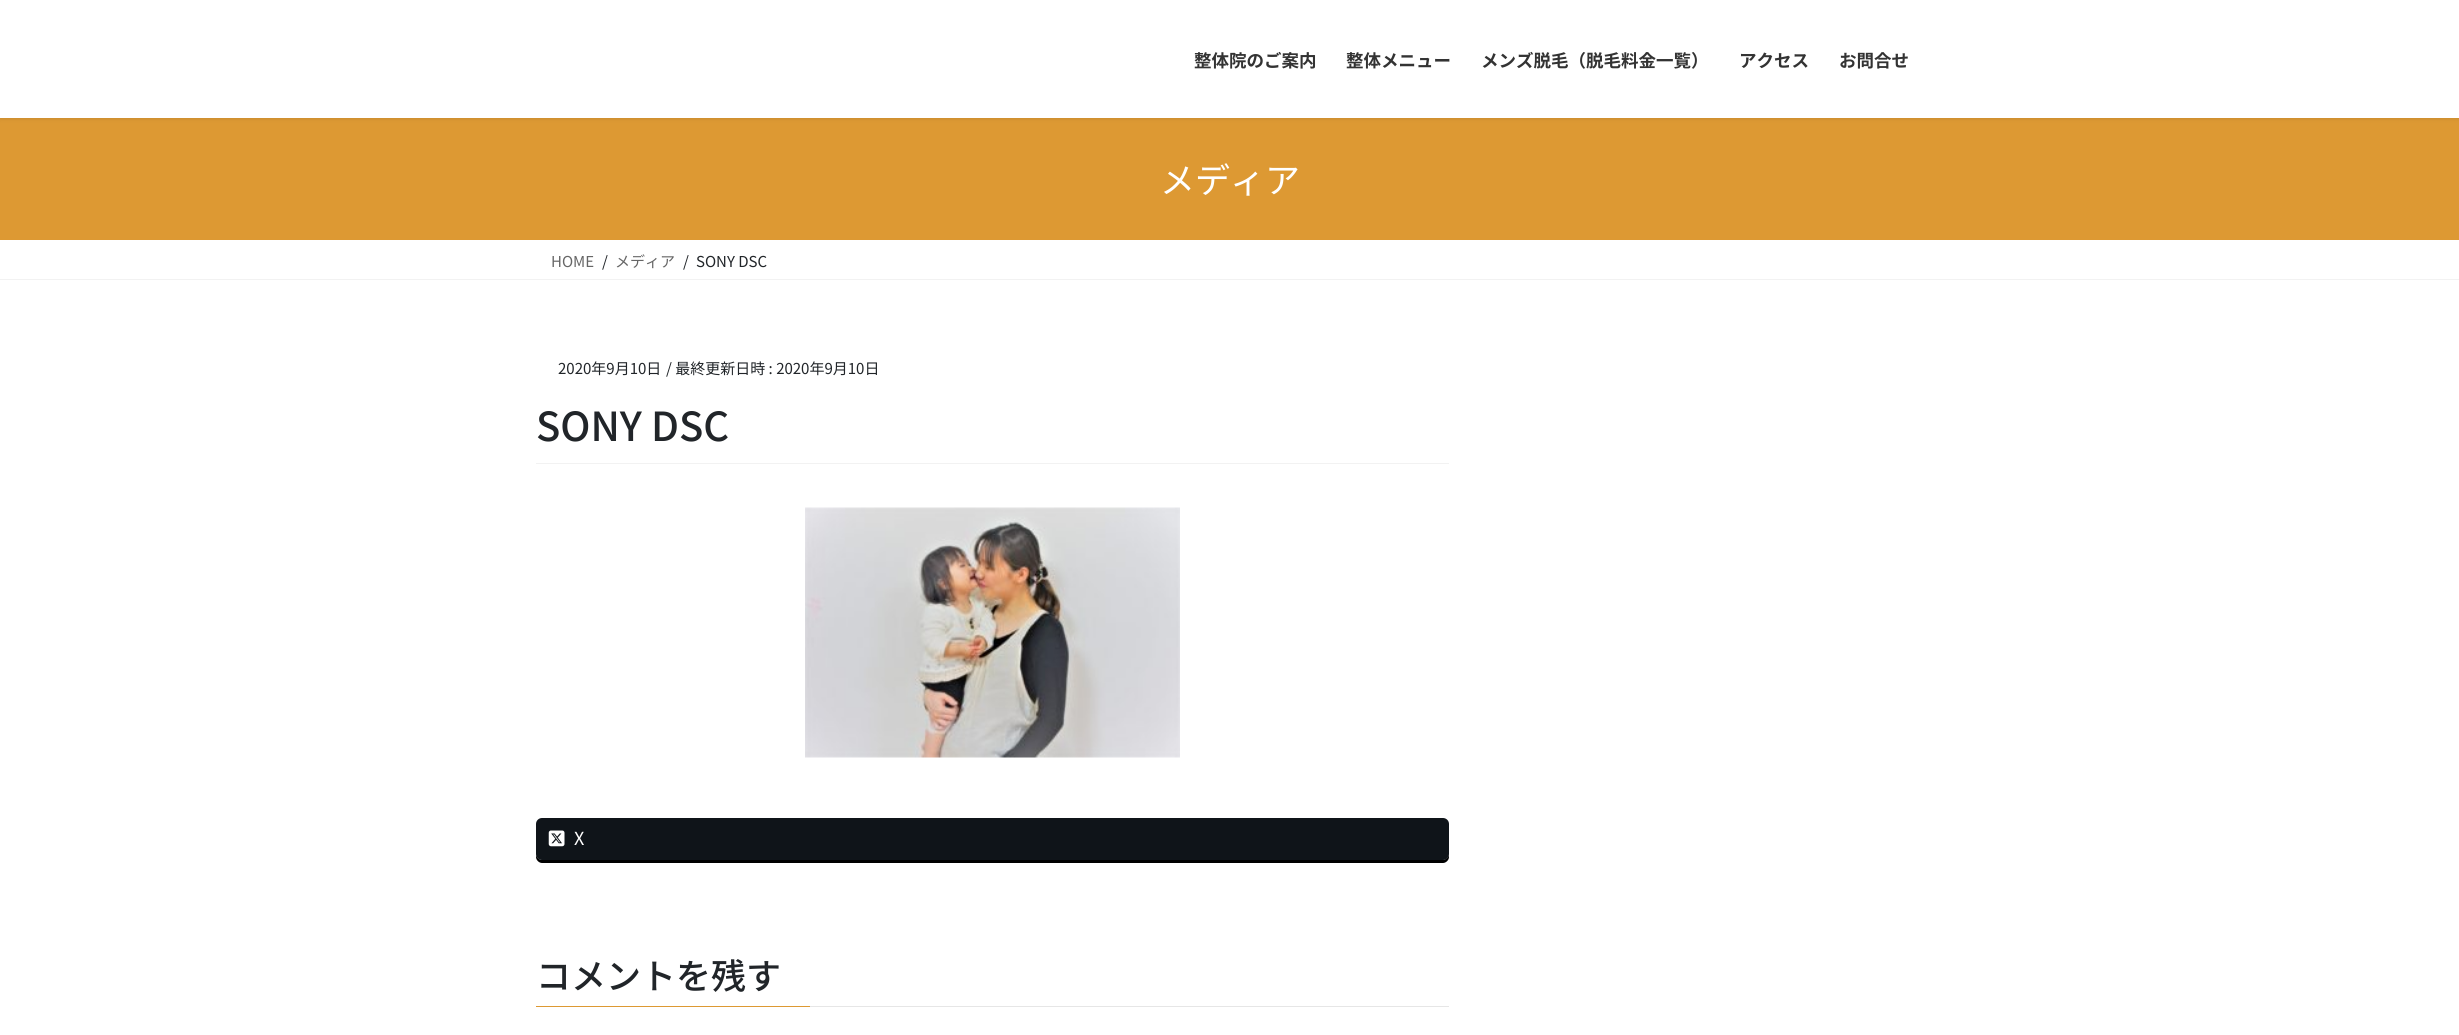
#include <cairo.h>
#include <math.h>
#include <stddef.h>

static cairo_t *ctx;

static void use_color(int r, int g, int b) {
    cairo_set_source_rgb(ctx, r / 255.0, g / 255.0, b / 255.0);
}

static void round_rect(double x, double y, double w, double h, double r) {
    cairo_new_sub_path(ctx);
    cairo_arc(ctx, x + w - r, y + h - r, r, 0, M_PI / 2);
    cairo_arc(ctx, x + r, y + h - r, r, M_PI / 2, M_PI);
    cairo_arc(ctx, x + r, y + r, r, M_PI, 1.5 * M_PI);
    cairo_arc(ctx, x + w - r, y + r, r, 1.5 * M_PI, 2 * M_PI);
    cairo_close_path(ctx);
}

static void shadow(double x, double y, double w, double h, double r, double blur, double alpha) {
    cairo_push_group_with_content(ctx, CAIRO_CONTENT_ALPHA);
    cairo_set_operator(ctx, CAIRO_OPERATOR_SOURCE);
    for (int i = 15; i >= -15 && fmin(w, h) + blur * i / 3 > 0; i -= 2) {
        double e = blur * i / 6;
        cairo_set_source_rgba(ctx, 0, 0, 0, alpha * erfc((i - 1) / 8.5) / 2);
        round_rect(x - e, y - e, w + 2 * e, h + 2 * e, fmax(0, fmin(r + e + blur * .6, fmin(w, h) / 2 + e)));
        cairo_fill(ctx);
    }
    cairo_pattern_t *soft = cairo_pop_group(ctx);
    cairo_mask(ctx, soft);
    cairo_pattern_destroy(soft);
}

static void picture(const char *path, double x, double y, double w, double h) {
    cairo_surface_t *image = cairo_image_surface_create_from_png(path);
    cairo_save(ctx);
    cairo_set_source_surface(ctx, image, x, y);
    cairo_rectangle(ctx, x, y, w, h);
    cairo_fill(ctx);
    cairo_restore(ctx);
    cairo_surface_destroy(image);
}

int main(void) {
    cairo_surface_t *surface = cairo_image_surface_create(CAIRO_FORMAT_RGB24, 2459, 1035);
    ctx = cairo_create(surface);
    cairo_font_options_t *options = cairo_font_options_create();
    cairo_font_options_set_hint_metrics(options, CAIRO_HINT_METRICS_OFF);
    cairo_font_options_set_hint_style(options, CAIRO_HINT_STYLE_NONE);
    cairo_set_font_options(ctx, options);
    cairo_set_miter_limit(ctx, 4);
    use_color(255, 255, 255);
    cairo_paint(ctx);
    use_color(221, 153, 51);
    cairo_rectangle(ctx, 0, 118, 2459, 122);
    cairo_fill(ctx);
    use_color(0, 0, 0);
    shadow(0, 1, 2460, 118, 0, 2, 0.1);
    use_color(255, 255, 255);
    cairo_rectangle(ctx, 0, 0, 2459, 118);
    cairo_fill(ctx);
    cairo_select_font_face(ctx, "Noto Sans JP", CAIRO_FONT_SLANT_NORMAL, CAIRO_FONT_WEIGHT_BOLD);
    cairo_set_font_size(ctx, 17.5);
    use_color(51, 51, 51);
    cairo_move_to(ctx, 1194, 67);
    cairo_show_text(ctx, "整体院のご案内");
    cairo_move_to(ctx, 1346, 67);
    cairo_show_text(ctx, "整体メニュー");
    cairo_move_to(ctx, 1481, 67);
    cairo_show_text(ctx, "メンズ脱毛（脱毛料金一覧）");
    cairo_move_to(ctx, 1739, 67);
    cairo_show_text(ctx, "アクセス");
    cairo_move_to(ctx, 1839, 67);
    cairo_show_text(ctx, "お問合せ");
    cairo_select_font_face(ctx, "Noto Sans JP", CAIRO_FONT_SLANT_NORMAL, CAIRO_FONT_WEIGHT_NORMAL);
    cairo_set_font_size(ctx, 35);
    use_color(255, 255, 255);
    cairo_move_to(ctx, 1160, 193);
    cairo_show_text(ctx, "メディア");
    use_color(242, 242, 242);
    cairo_rectangle(ctx, 0, 279, 2459, 1);
    cairo_fill(ctx);
    cairo_set_font_size(ctx, 15);
    use_color(102, 102, 102);
    cairo_move_to(ctx, 551, 267);
    cairo_show_text(ctx, "HOME");
    use_color(33, 37, 41);
    cairo_move_to(ctx, 602, 267);
    cairo_show_text(ctx, "/");
    use_color(102, 102, 102);
    cairo_move_to(ctx, 615, 267);
    cairo_show_text(ctx, "メディア");
    use_color(33, 37, 41);
    cairo_move_to(ctx, 683, 267);
    cairo_show_text(ctx, "/");
    cairo_move_to(ctx, 696, 267);
    cairo_show_text(ctx, "SONY DSC");
    use_color(242, 242, 242);
    cairo_rectangle(ctx, 536, 463, 913, 1);
    cairo_fill(ctx);
    use_color(33, 37, 41);
    cairo_move_to(ctx, 558, 374);
    cairo_show_text(ctx, "2020年9月10日");
    cairo_move_to(ctx, 666, 374);
    cairo_show_text(ctx, "/ 最終更新日時 : 2020年9月10日");
    cairo_select_font_face(ctx, "Noto Sans JP Medium", CAIRO_FONT_SLANT_NORMAL, CAIRO_FONT_WEIGHT_NORMAL);
    cairo_set_font_size(ctx, 40);
    cairo_move_to(ctx, 536, 441);
    cairo_show_text(ctx, "SONY DSC");
    picture("img1.png", 805, 507, 375, 251);
    use_color(0, 0, 0);
    cairo_new_path(ctx);
    cairo_move_to(ctx, 536, 824);
    cairo_line_to(ctx, 536, 857);
    cairo_curve_to(ctx, 536, 860, 539, 863, 542, 863);
    cairo_line_to(ctx, 1443, 863);
    cairo_curve_to(ctx, 1446, 863, 1449, 860, 1449, 857);
    cairo_line_to(ctx, 1449, 824);
    cairo_line_to(ctx, 1449, 854);
    cairo_curve_to(ctx, 1449, 857, 1446, 860, 1442, 860);
    cairo_line_to(ctx, 542, 860);
    cairo_curve_to(ctx, 539, 860, 536, 857, 536, 854);
    cairo_close_path(ctx);
    cairo_fill(ctx);
    use_color(15, 20, 25);
    round_rect(536, 818, 913, 42, 6);
    cairo_fill(ctx);
    picture("img2.png", 548, 830, 17, 17);
    cairo_select_font_face(ctx, "Noto Sans JP", CAIRO_FONT_SLANT_NORMAL, CAIRO_FONT_WEIGHT_NORMAL);
    cairo_set_font_size(ctx, 18);
    use_color(255, 255, 255);
    cairo_move_to(ctx, 574, 845);
    cairo_show_text(ctx, "X");
    use_color(230, 230, 230);
    cairo_rectangle(ctx, 810, 1006, 639, 1);
    cairo_fill(ctx);
    cairo_select_font_face(ctx, "Noto Sans JP Medium", CAIRO_FONT_SLANT_NORMAL, CAIRO_FONT_WEIGHT_NORMAL);
    cairo_set_font_size(ctx, 35);
    use_color(33, 37, 41);
    cairo_move_to(ctx, 536, 989);
    cairo_show_text(ctx, "コメントを残す");
    use_color(221, 153, 51);
    cairo_rectangle(ctx, 536, 1006, 274, 1);
    cairo_fill(ctx);
    cairo_surface_write_to_png(surface, "result.png");
    cairo_font_options_destroy(options);
    cairo_destroy(ctx);
    cairo_surface_destroy(surface);
    return 0;
}
